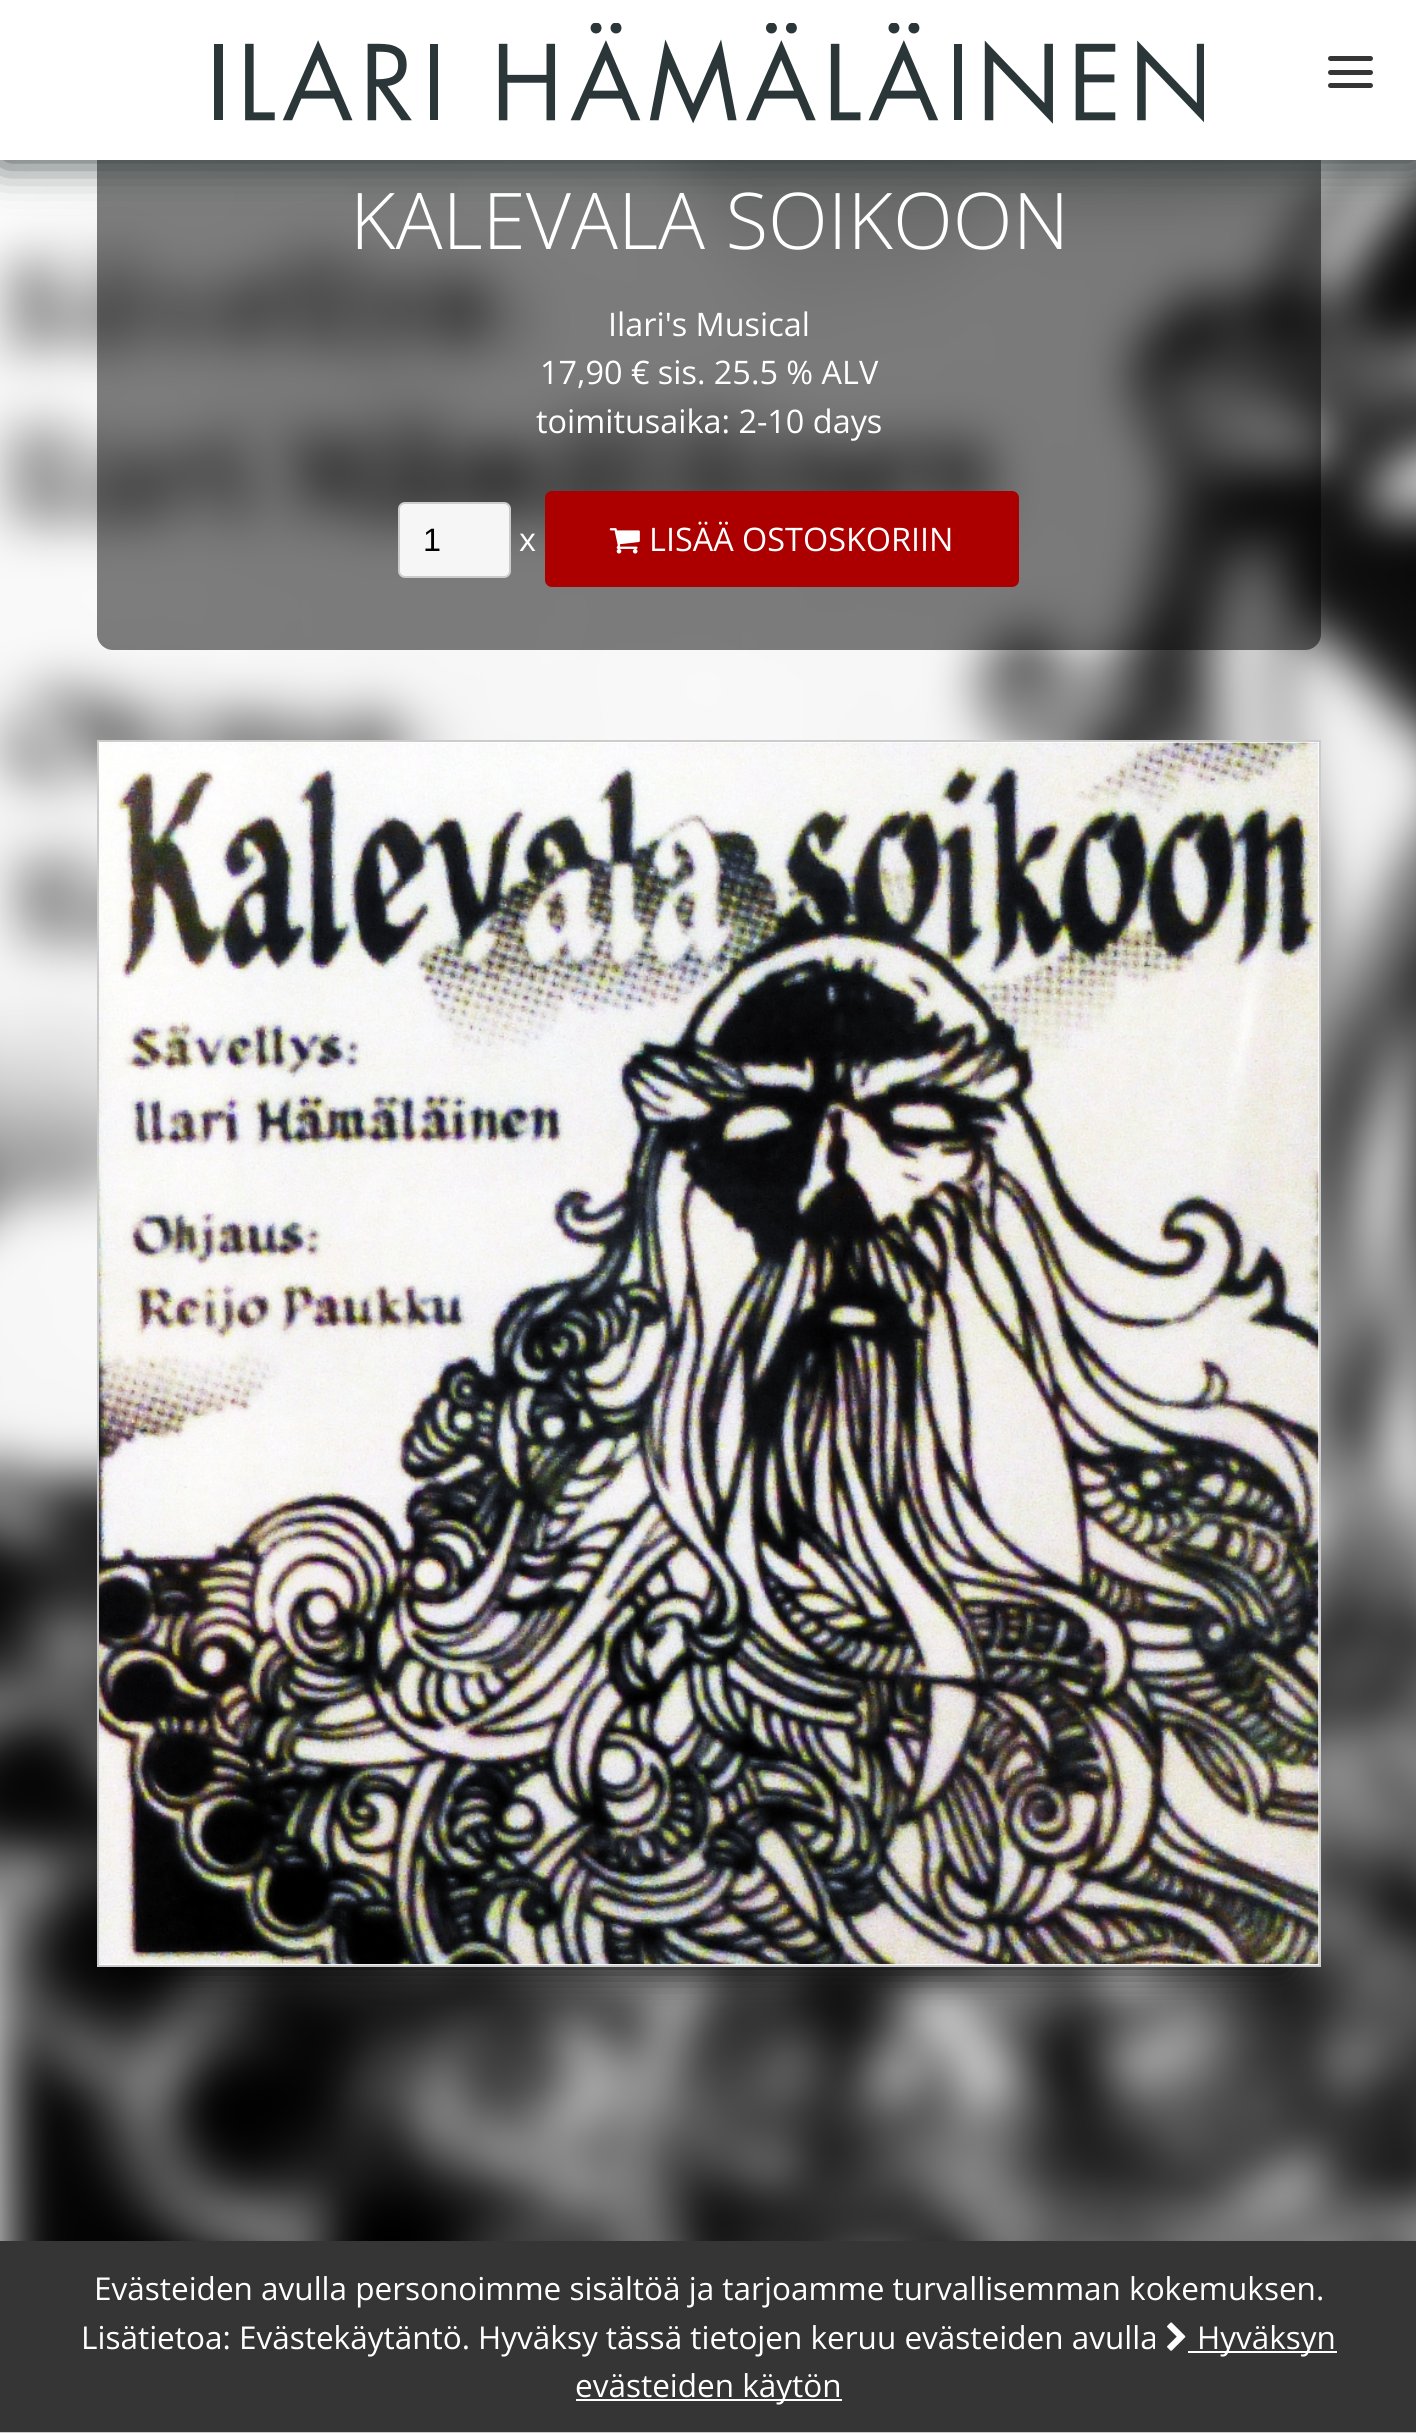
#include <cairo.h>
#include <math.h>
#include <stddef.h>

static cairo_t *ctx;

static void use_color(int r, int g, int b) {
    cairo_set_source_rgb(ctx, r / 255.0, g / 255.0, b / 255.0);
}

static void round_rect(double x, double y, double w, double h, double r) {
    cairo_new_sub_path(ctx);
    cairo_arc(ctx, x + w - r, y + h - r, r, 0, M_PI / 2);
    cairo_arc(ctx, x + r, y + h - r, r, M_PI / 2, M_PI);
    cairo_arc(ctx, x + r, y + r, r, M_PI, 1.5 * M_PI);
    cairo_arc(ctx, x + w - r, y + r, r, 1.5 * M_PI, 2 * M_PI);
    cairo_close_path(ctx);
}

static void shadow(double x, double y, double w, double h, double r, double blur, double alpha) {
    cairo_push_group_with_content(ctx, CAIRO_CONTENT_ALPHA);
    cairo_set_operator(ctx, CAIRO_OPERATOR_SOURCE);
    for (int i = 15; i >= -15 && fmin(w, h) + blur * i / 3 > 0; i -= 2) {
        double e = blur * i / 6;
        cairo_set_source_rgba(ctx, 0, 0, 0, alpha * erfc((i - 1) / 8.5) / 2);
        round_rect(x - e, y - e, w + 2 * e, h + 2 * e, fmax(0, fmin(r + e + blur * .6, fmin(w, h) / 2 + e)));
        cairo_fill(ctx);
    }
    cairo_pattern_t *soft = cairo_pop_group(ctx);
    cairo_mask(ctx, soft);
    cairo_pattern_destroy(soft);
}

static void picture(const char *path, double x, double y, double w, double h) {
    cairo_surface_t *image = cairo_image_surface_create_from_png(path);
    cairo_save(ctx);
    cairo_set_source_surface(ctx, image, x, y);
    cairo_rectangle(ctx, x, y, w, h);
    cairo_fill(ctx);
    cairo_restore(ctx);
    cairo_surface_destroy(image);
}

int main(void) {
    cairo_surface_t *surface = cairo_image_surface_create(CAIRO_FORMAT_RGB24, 1416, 2433);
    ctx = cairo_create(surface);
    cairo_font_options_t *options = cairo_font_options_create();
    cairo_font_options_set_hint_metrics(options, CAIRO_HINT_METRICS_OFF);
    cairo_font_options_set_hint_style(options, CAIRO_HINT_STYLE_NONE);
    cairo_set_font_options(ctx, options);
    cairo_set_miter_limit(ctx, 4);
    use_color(255, 255, 255);
    cairo_paint(ctx);
    picture("img2.png", 0, 160, 1416, 2081);
    cairo_set_source_rgba(ctx, 0, 0, 0, 0.5);
    round_rect(97, 122, 1224, 528, 16);
    cairo_fill(ctx);
    use_color(44, 55, 57);
    shadow(0, 0, 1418, 160, 0, 22.5, 1);
    use_color(255, 255, 255);
    cairo_rectangle(ctx, 0, 0, 1416, 160);
    cairo_fill(ctx);
    picture("img1.png", 214, 23, 990, 101);
    use_color(53, 53, 53);
    round_rect(1328, 56, 45, 5, 2.5);
    cairo_fill(ctx);
    round_rect(1328, 70, 45, 5, 2.5);
    cairo_fill(ctx);
    round_rect(1328, 83, 45, 5, 2.5);
    cairo_fill(ctx);
    cairo_select_font_face(ctx, "Open Sans Light", CAIRO_FONT_SLANT_NORMAL, CAIRO_FONT_WEIGHT_NORMAL);
    cairo_set_font_size(ctx, 78.25);
    use_color(255, 255, 255);
    cairo_move_to(ctx, 350, 249);
    cairo_show_text(ctx, "KALEVALA SOIKOON");
    cairo_select_font_face(ctx, "Open Sans", CAIRO_FONT_SLANT_NORMAL, CAIRO_FONT_WEIGHT_NORMAL);
    cairo_set_font_size(ctx, 32.4);
    cairo_move_to(ctx, 608, 336);
    cairo_show_text(ctx, "Ilari's Musical");
    cairo_move_to(ctx, 540, 384);
    cairo_show_text(ctx, "17,90 € sis. 25.5 % ALV");
    cairo_move_to(ctx, 536, 433);
    cairo_show_text(ctx, "toimitusaika: 2-10 days");
    use_color(246, 246, 246);
    round_rect(399, 503, 111, 74, 6);
    cairo_fill_preserve(ctx);
    use_color(204, 204, 204);
    cairo_stroke(ctx);
    cairo_select_font_face(ctx, "Liberation Sans", CAIRO_FONT_SLANT_NORMAL, CAIRO_FONT_WEIGHT_NORMAL);
    use_color(0, 0, 0);
    cairo_move_to(ctx, 423, 551);
    cairo_show_text(ctx, "1");
    cairo_select_font_face(ctx, "Open Sans", CAIRO_FONT_SLANT_NORMAL, CAIRO_FONT_WEIGHT_NORMAL);
    use_color(255, 255, 255);
    cairo_move_to(ctx, 519, 551);
    cairo_show_text(ctx, "x");
    use_color(172, 0, 0);
    round_rect(545, 491, 474, 96, 7);
    cairo_fill(ctx);
    picture("img3.png", 609, 528, 31, 26);
    use_color(255, 255, 255);
    cairo_move_to(ctx, 649, 551);
    cairo_show_text(ctx, "LISÄÄ OSTOSKORIIN");
    cairo_save(ctx);
    cairo_rectangle(ctx, 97, 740, 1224, 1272);
    cairo_clip(ctx);
    use_color(0, 0, 0);
    shadow(133, 812, 1152, 1155, 0, 18, 1);
    cairo_restore(ctx);
    cairo_rectangle(ctx, 98, 741, 1222, 1225);
    cairo_fill_preserve(ctx);
    use_color(204, 204, 204);
    cairo_stroke(ctx);
    picture("img4.png", 99, 742, 1220, 1223);
    use_color(53, 53, 53);
    cairo_rectangle(ctx, 0, 2241, 1416, 191);
    cairo_fill(ctx);
    use_color(204, 204, 204);
    cairo_rectangle(ctx, 0, 2432, 1416, 1);
    cairo_fill(ctx);
    cairo_set_font_size(ctx, 31.5);
    use_color(255, 255, 255);
    cairo_move_to(ctx, 94, 2300);
    cairo_show_text(ctx, "Evästeiden avulla personoimme sisältöä ja tarjoamme turvallisemman kokemuksen.");
    cairo_move_to(ctx, 81, 2349);
    cairo_show_text(ctx, "Lisätietoa: Evästekäytäntö. Hyväksy tässä tietojen keruu evästeiden avulla");
    picture("img5.png", 1167, 2322, 19, 29);
    cairo_rectangle(ctx, 1188, 2351, 149, 2);
    cairo_fill(ctx);
    cairo_move_to(ctx, 1197, 2349);
    cairo_show_text(ctx, "Hyväksyn");
    cairo_rectangle(ctx, 576, 2399, 266, 2);
    cairo_fill(ctx);
    cairo_move_to(ctx, 575, 2397);
    cairo_show_text(ctx, "evästeiden käytön");
    cairo_surface_write_to_png(surface, "result.png");
    cairo_font_options_destroy(options);
    cairo_destroy(ctx);
    cairo_surface_destroy(surface);
    return 0;
}
